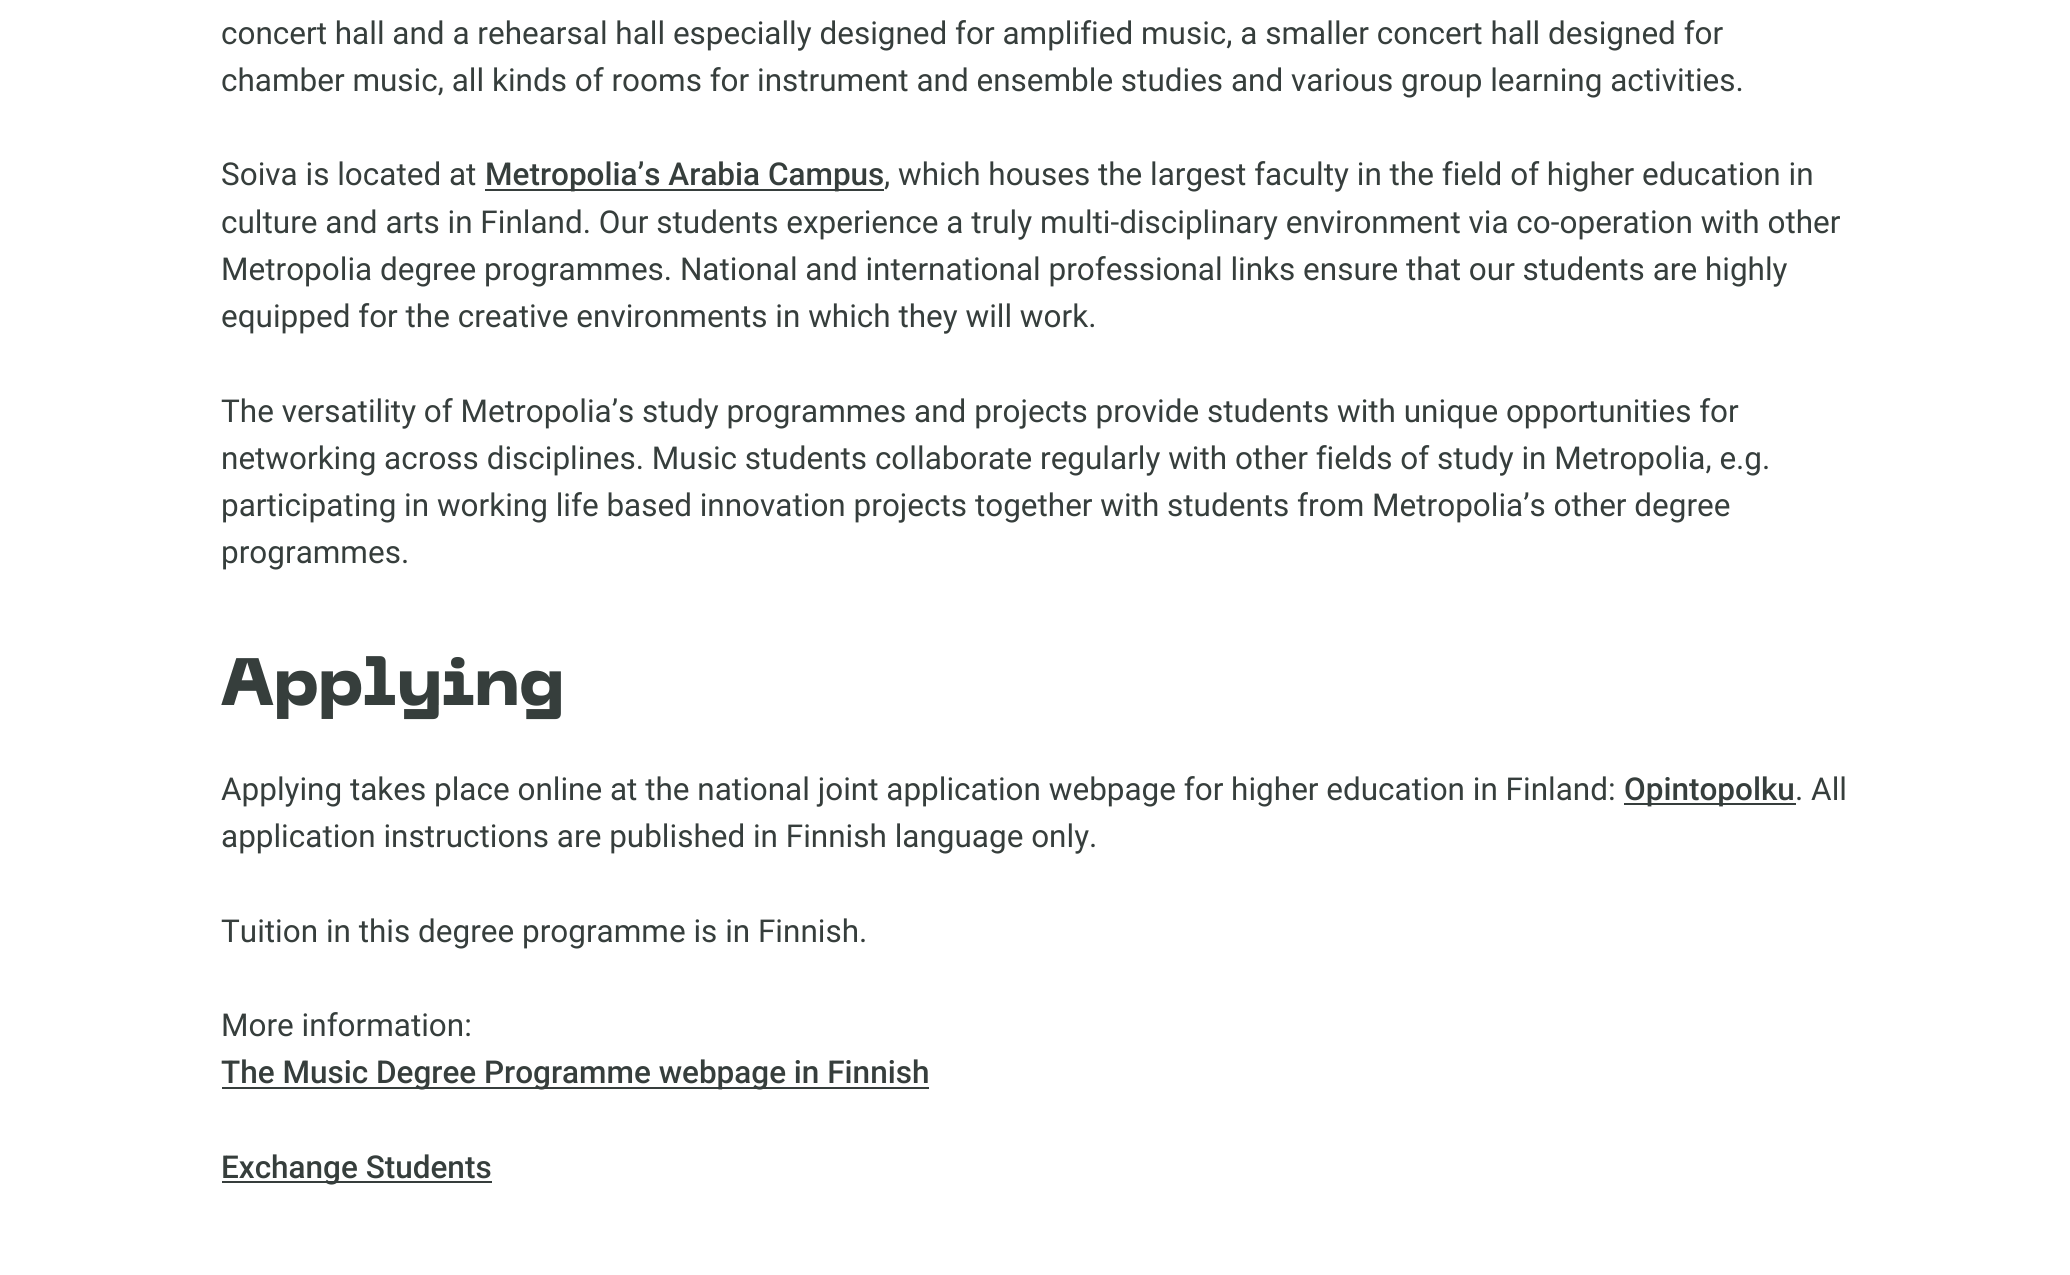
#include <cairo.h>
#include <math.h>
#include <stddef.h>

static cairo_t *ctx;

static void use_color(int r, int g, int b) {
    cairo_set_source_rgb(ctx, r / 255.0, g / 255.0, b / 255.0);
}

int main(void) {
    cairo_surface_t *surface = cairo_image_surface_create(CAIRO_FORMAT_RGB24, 2070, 1275);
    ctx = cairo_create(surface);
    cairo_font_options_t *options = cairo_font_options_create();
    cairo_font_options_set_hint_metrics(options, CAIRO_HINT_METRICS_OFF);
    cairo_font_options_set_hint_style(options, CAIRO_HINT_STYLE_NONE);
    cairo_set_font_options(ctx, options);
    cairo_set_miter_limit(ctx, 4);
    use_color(255, 255, 255);
    cairo_paint(ctx);
    cairo_select_font_face(ctx, "Roboto", CAIRO_FONT_SLANT_NORMAL, CAIRO_FONT_WEIGHT_NORMAL);
    cairo_set_font_size(ctx, 31.5);
    use_color(54, 62, 60);
    cairo_move_to(ctx, 221, 44);
    cairo_show_text(ctx, "concert hall and a rehearsal hall especially designed for amplified music, a smaller concert hall designed for");
    cairo_move_to(ctx, 221, 91);
    cairo_show_text(ctx, "chamber music, all kinds of rooms for instrument and ensemble studies and various group learning activities.");
    cairo_move_to(ctx, 221, 185);
    cairo_show_text(ctx, "Soiva is located at");
    cairo_rectangle(ctx, 485, 189, 399, 2);
    cairo_fill(ctx);
    cairo_select_font_face(ctx, "Roboto Medium", CAIRO_FONT_SLANT_NORMAL, CAIRO_FONT_WEIGHT_NORMAL);
    cairo_move_to(ctx, 485, 185);
    cairo_show_text(ctx, "Metropolia’s Arabia Campus");
    cairo_select_font_face(ctx, "Roboto", CAIRO_FONT_SLANT_NORMAL, CAIRO_FONT_WEIGHT_NORMAL);
    cairo_move_to(ctx, 884, 185);
    cairo_show_text(ctx, ", which houses the largest faculty in the field of higher education in");
    cairo_move_to(ctx, 221, 233);
    cairo_show_text(ctx, "culture and arts in Finland. Our students experience a truly multi-disciplinary environment via co-operation with other");
    cairo_move_to(ctx, 221, 280);
    cairo_show_text(ctx, "Metropolia degree programmes. National and international professional links ensure that our students are highly");
    cairo_move_to(ctx, 221, 327);
    cairo_show_text(ctx, "equipped for the creative environments in which they will work.");
    cairo_move_to(ctx, 221, 422);
    cairo_show_text(ctx, "The versatility of Metropolia’s study programmes and projects provide students with unique opportunities for");
    cairo_move_to(ctx, 221, 469);
    cairo_show_text(ctx, "networking across disciplines. Music students collaborate regularly with other fields of study in Metropolia, e.g.");
    cairo_move_to(ctx, 221, 516);
    cairo_show_text(ctx, "participating in working life based innovation projects together with students from Metropolia’s other degree");
    cairo_move_to(ctx, 221, 563);
    cairo_show_text(ctx, "programmes.");
    cairo_select_font_face(ctx, "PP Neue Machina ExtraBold", CAIRO_FONT_SLANT_NORMAL, CAIRO_FONT_WEIGHT_NORMAL);
    cairo_set_font_size(ctx, 66.5);
    cairo_move_to(ctx, 221, 705);
    cairo_show_text(ctx, "Applying");
    cairo_select_font_face(ctx, "Roboto", CAIRO_FONT_SLANT_NORMAL, CAIRO_FONT_WEIGHT_NORMAL);
    cairo_set_font_size(ctx, 31.5);
    cairo_move_to(ctx, 221, 800);
    cairo_show_text(ctx, "Applying takes place online at the national joint application webpage for higher education in Finland:");
    cairo_rectangle(ctx, 1624, 803, 172, 2);
    cairo_fill(ctx);
    cairo_select_font_face(ctx, "Roboto Medium", CAIRO_FONT_SLANT_NORMAL, CAIRO_FONT_WEIGHT_NORMAL);
    cairo_move_to(ctx, 1624, 800);
    cairo_show_text(ctx, "Opintopolku");
    cairo_select_font_face(ctx, "Roboto", CAIRO_FONT_SLANT_NORMAL, CAIRO_FONT_WEIGHT_NORMAL);
    cairo_move_to(ctx, 1795, 800);
    cairo_show_text(ctx, ". All");
    cairo_move_to(ctx, 221, 847);
    cairo_show_text(ctx, "application instructions are published in Finnish language only.");
    cairo_move_to(ctx, 221, 942);
    cairo_show_text(ctx, "Tuition in this degree programme is in Finnish.");
    cairo_move_to(ctx, 221, 1036);
    cairo_show_text(ctx, "More information:");
    cairo_rectangle(ctx, 222, 1087, 707, 2);
    cairo_fill(ctx);
    cairo_select_font_face(ctx, "Roboto Medium", CAIRO_FONT_SLANT_NORMAL, CAIRO_FONT_WEIGHT_NORMAL);
    cairo_move_to(ctx, 221, 1083);
    cairo_show_text(ctx, "The Music Degree Programme webpage in Finnish");
    cairo_rectangle(ctx, 222, 1181, 270, 2);
    cairo_fill(ctx);
    cairo_move_to(ctx, 221, 1178);
    cairo_show_text(ctx, "Exchange Students");
    cairo_surface_write_to_png(surface, "result.png");
    cairo_font_options_destroy(options);
    cairo_destroy(ctx);
    cairo_surface_destroy(surface);
    return 0;
}
